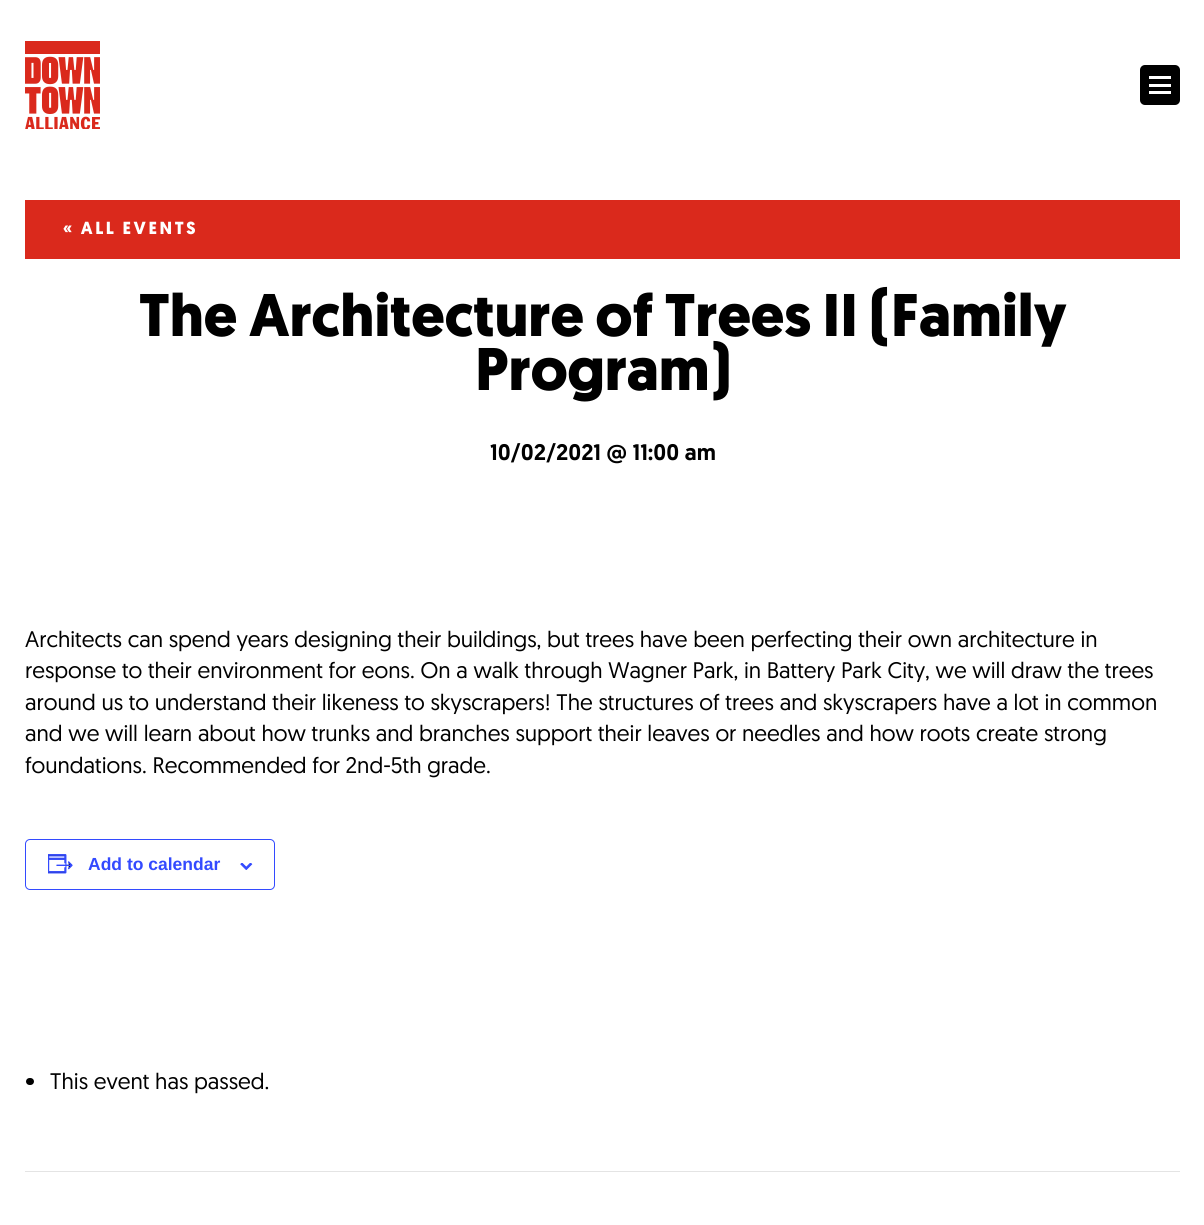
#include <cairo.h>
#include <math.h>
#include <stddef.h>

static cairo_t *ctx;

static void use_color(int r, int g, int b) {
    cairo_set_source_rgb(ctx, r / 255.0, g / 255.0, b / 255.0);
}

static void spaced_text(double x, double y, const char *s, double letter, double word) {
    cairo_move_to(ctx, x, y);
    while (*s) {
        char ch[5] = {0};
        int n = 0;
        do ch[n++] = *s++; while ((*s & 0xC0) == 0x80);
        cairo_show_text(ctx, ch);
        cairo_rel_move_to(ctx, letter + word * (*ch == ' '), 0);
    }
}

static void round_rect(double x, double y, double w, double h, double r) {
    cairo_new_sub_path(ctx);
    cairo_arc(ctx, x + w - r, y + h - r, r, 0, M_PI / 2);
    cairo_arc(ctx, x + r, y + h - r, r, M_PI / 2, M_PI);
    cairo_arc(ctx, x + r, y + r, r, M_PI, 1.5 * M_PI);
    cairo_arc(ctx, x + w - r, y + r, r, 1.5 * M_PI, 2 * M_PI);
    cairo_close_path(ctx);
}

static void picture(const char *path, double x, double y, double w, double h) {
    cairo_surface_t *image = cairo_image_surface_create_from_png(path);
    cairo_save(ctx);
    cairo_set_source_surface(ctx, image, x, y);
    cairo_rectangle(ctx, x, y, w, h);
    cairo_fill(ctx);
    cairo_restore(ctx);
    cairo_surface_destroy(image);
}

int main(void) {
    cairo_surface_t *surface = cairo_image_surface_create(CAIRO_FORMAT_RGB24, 1204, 1225);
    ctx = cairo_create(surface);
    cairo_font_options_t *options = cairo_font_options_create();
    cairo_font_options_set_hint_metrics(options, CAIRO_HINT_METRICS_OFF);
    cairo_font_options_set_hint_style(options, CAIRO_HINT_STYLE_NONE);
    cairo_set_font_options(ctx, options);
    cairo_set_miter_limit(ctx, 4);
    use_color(255, 255, 255);
    cairo_paint(ctx);
    picture("img1.png", 25, 41, 75, 88);
    use_color(0, 0, 0);
    round_rect(1140, 65, 40, 40, 5);
    cairo_fill(ctx);
    use_color(255, 255, 255);
    cairo_rectangle(ctx, 1149, 76, 22, 3);
    cairo_fill(ctx);
    cairo_rectangle(ctx, 1149, 84, 22, 3);
    cairo_fill(ctx);
    cairo_rectangle(ctx, 1149, 91, 22, 3);
    cairo_fill(ctx);
    use_color(218, 41, 28);
    cairo_rectangle(ctx, 25, 200, 1155, 59);
    cairo_fill(ctx);
    cairo_select_font_face(ctx, "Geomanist", CAIRO_FONT_SLANT_NORMAL, CAIRO_FONT_WEIGHT_BOLD);
    cairo_set_font_size(ctx, 17.5);
    use_color(255, 255, 255);
    spaced_text(63, 234, "« ALL EVENTS", 2.6, 0);
    cairo_set_font_size(ctx, 60);
    use_color(0, 0, 0);
    cairo_move_to(ctx, 139, 336);
    cairo_show_text(ctx, "The Architecture of Trees II (Family");
    cairo_move_to(ctx, 475, 390);
    cairo_show_text(ctx, "Program)");
    cairo_select_font_face(ctx, "Geomanist Medium", CAIRO_FONT_SLANT_NORMAL, CAIRO_FONT_WEIGHT_NORMAL);
    cairo_set_font_size(ctx, 22.5);
    cairo_move_to(ctx, 490, 460);
    cairo_show_text(ctx, "10/02/2021 @ 11:00 am");
    cairo_select_font_face(ctx, "Geomanist", CAIRO_FONT_SLANT_NORMAL, CAIRO_FONT_WEIGHT_NORMAL);
    cairo_move_to(ctx, 25, 647);
    cairo_show_text(ctx, "Architects can spend years designing their buildings, but trees have been perfecting their own architecture in");
    cairo_move_to(ctx, 25, 678);
    cairo_show_text(ctx, "response to their environment for eons. On a walk through Wagner Park, in Battery Park City, we will draw the trees");
    cairo_move_to(ctx, 25, 710);
    cairo_show_text(ctx, "around us to understand their likeness to skyscrapers! The structures of trees and skyscrapers have a lot in common");
    cairo_move_to(ctx, 25, 741);
    cairo_show_text(ctx, "and we will learn about how trunks and branches support their leaves or needles and how roots create strong");
    cairo_move_to(ctx, 25, 773);
    cairo_show_text(ctx, "foundations. Recommended for 2nd-5th grade.");
    round_rect(25.5, 839.5, 249, 50, 4.5);
    use_color(51, 74, 255);
    cairo_set_line_width(ctx, 1);
    cairo_stroke(ctx);
    picture("img2.png", 48, 854, 25, 20);
    cairo_select_font_face(ctx, "Liberation Sans", CAIRO_FONT_SLANT_NORMAL, CAIRO_FONT_WEIGHT_BOLD);
    cairo_set_font_size(ctx, 17.5);
    cairo_move_to(ctx, 88, 870);
    cairo_show_text(ctx, "Add to calendar");
    picture("img3.png", 240, 863, 13, 7);
    use_color(228, 228, 228);
    cairo_rectangle(ctx, 25, 1171, 1155, 1);
    cairo_fill(ctx);
    use_color(0, 0, 0);
    round_rect(26, 1078, 8, 7, 3.5);
    cairo_fill(ctx);
    cairo_select_font_face(ctx, "Geomanist", CAIRO_FONT_SLANT_NORMAL, CAIRO_FONT_WEIGHT_NORMAL);
    cairo_set_font_size(ctx, 22.5);
    cairo_move_to(ctx, 50, 1089);
    cairo_show_text(ctx, "This event has passed.");
    cairo_surface_write_to_png(surface, "result.png");
    cairo_font_options_destroy(options);
    cairo_destroy(ctx);
    cairo_surface_destroy(surface);
    return 0;
}
